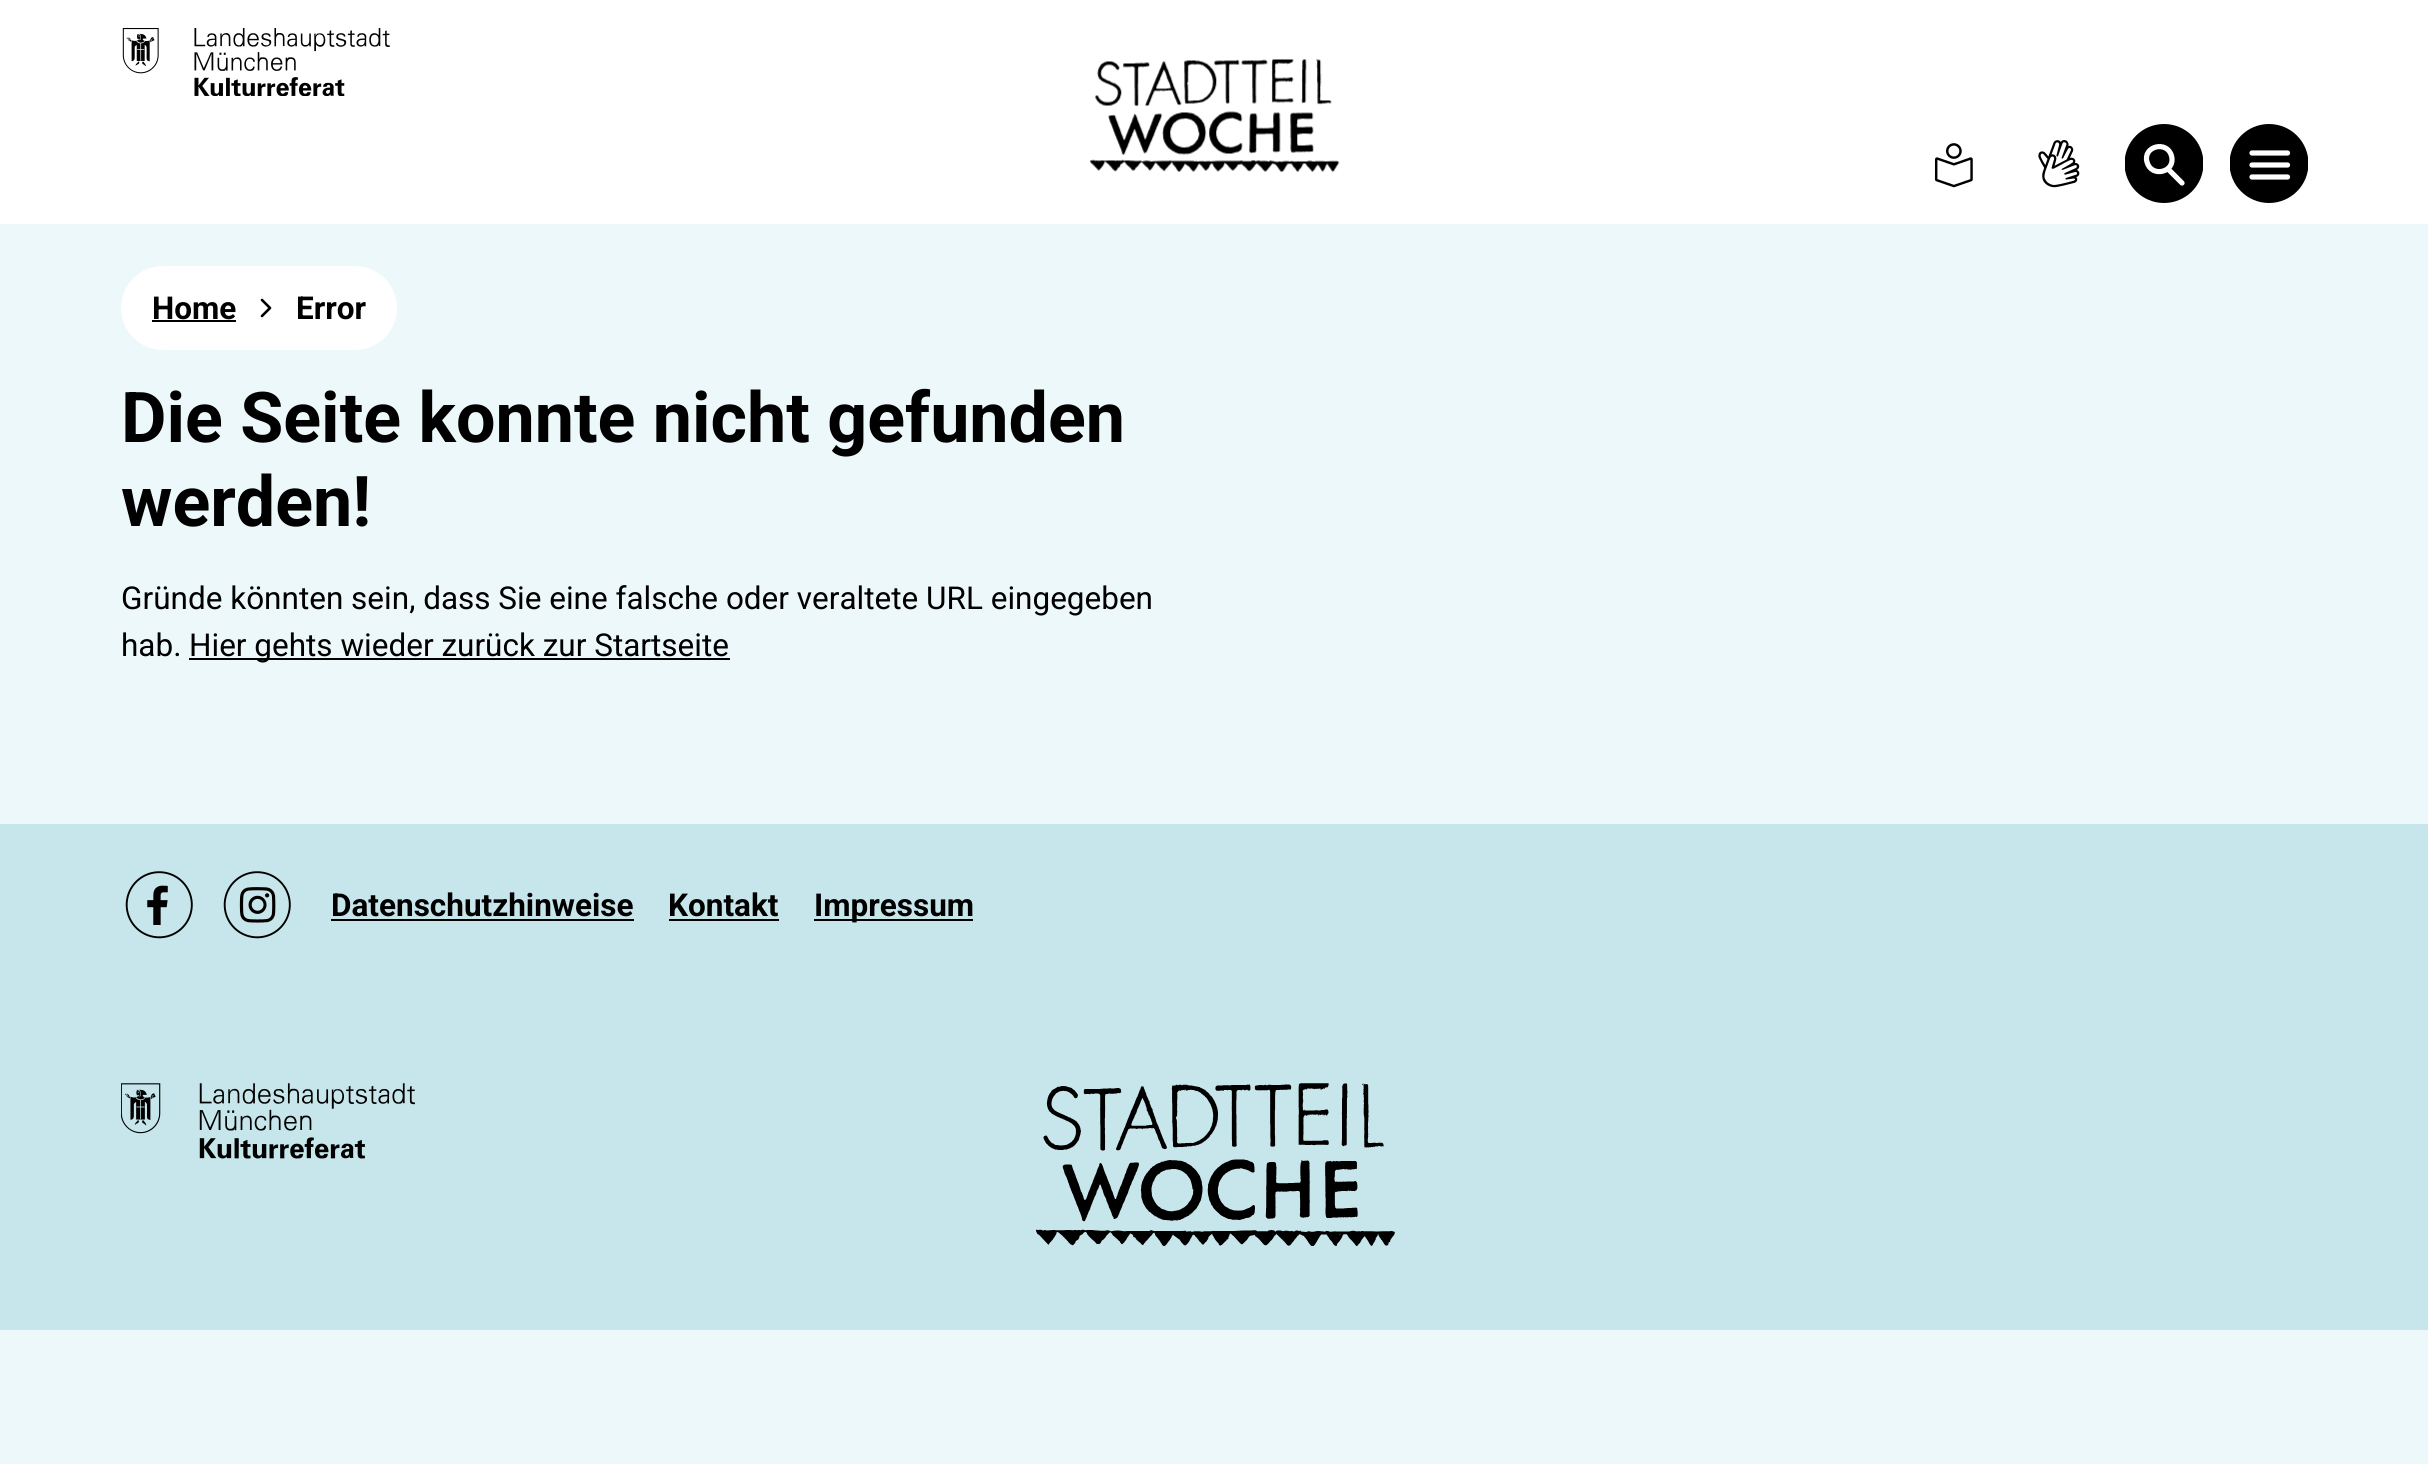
#include <cairo.h>
#include <math.h>
#include <stddef.h>

static cairo_t *ctx;

static void use_color(int r, int g, int b) {
    cairo_set_source_rgb(ctx, r / 255.0, g / 255.0, b / 255.0);
}

static void round_rect(double x, double y, double w, double h, double r) {
    cairo_new_sub_path(ctx);
    cairo_arc(ctx, x + w - r, y + h - r, r, 0, M_PI / 2);
    cairo_arc(ctx, x + r, y + h - r, r, M_PI / 2, M_PI);
    cairo_arc(ctx, x + r, y + r, r, M_PI, 1.5 * M_PI);
    cairo_arc(ctx, x + w - r, y + r, r, 1.5 * M_PI, 2 * M_PI);
    cairo_close_path(ctx);
}

static void picture(const char *path, double x, double y, double w, double h) {
    cairo_surface_t *image = cairo_image_surface_create_from_png(path);
    cairo_save(ctx);
    cairo_set_source_surface(ctx, image, x, y);
    cairo_rectangle(ctx, x, y, w, h);
    cairo_fill(ctx);
    cairo_restore(ctx);
    cairo_surface_destroy(image);
}

int main(void) {
    cairo_surface_t *surface = cairo_image_surface_create(CAIRO_FORMAT_RGB24, 2428, 1464);
    ctx = cairo_create(surface);
    cairo_font_options_t *options = cairo_font_options_create();
    cairo_font_options_set_hint_metrics(options, CAIRO_HINT_METRICS_OFF);
    cairo_font_options_set_hint_style(options, CAIRO_HINT_STYLE_NONE);
    cairo_set_font_options(ctx, options);
    cairo_set_miter_limit(ctx, 4);
    use_color(237, 248, 250);
    cairo_paint(ctx);
    use_color(255, 255, 255);
    cairo_rectangle(ctx, 0, 0, 2428, 224);
    cairo_fill(ctx);
    picture("img1.png", 122, 28, 268, 68);
    picture("img2.png", 1090, 59, 250, 113);
    picture("img3.png", 1934, 143, 39, 45);
    picture("img4.png", 2038, 140, 42, 48);
    cairo_save(ctx);
    cairo_rectangle(ctx, 2125, 124, 78, 79);
    cairo_clip(ctx);
    use_color(0, 0, 0);
    cairo_arc(ctx, 2164, 163.5, 39.5, 0, 2 * M_PI);
    cairo_fill(ctx);
    cairo_restore(ctx);
    cairo_new_path(ctx);
    cairo_move_to(ctx, 2168.5, 169.5);
    cairo_line_to(ctx, 2182, 183);
    cairo_set_line_width(ctx, 5.2);
    cairo_set_line_cap(ctx, CAIRO_LINE_CAP_ROUND);
    cairo_set_line_join(ctx, CAIRO_LINE_JOIN_ROUND);
    cairo_stroke(ctx);
    cairo_new_path(ctx);
    cairo_move_to(ctx, 2171.5, 156);
    cairo_curve_to(ctx, 2176, 172, 2151.5, 178.5, 2147, 162);
    cairo_curve_to(ctx, 2142.5, 146, 2167.5, 140, 2171.5, 156);
    cairo_close_path(ctx);
    cairo_set_line_cap(ctx, CAIRO_LINE_CAP_BUTT);
    cairo_set_line_join(ctx, CAIRO_LINE_JOIN_MITER);
    cairo_stroke(ctx);
    cairo_save(ctx);
    cairo_rectangle(ctx, 2230, 124, 78, 79);
    cairo_clip(ctx);
    use_color(0, 0, 0);
    cairo_arc(ctx, 2269, 163.5, 39.5, 0, 2 * M_PI);
    cairo_fill(ctx);
    cairo_restore(ctx);
    cairo_new_path(ctx);
    cairo_move_to(ctx, 2252, 177);
    cairo_line_to(ctx, 2287.5, 177);
    cairo_move_to(ctx, 2287.5, 153);
    cairo_line_to(ctx, 2252, 153);
    cairo_move_to(ctx, 2269.5, 165);
    cairo_line_to(ctx, 2287.5, 165);
    cairo_line_to(ctx, 2252, 165);
    cairo_set_line_cap(ctx, CAIRO_LINE_CAP_ROUND);
    cairo_set_line_join(ctx, CAIRO_LINE_JOIN_ROUND);
    cairo_stroke(ctx);
    round_rect(121, 266, 276, 84, 42);
    cairo_fill(ctx);
    cairo_select_font_face(ctx, "Roboto", CAIRO_FONT_SLANT_NORMAL, CAIRO_FONT_WEIGHT_BOLD);
    cairo_set_font_size(ctx, 31.5);
    use_color(0, 0, 0);
    cairo_move_to(ctx, 152, 319);
    cairo_show_text(ctx, "Home");
    cairo_rectangle(ctx, 152, 320, 84, 2);
    cairo_fill(ctx);
    cairo_new_path(ctx);
    cairo_move_to(ctx, 262, 316);
    cairo_line_to(ctx, 270, 308);
    cairo_line_to(ctx, 262, 300);
    cairo_set_line_width(ctx, 2.6);
    cairo_stroke(ctx);
    cairo_move_to(ctx, 296, 319);
    cairo_show_text(ctx, "Error");
    cairo_set_font_size(ctx, 70);
    cairo_move_to(ctx, 121, 442);
    cairo_show_text(ctx, "Die Seite konnte nicht gefunden");
    cairo_move_to(ctx, 121, 526);
    cairo_show_text(ctx, "werden!");
    cairo_select_font_face(ctx, "Roboto", CAIRO_FONT_SLANT_NORMAL, CAIRO_FONT_WEIGHT_NORMAL);
    cairo_set_font_size(ctx, 31.5);
    cairo_move_to(ctx, 121, 609);
    cairo_show_text(ctx, "Gründe könnten sein, dass Sie eine falsche oder veraltete URL eingegeben");
    cairo_move_to(ctx, 121, 656);
    cairo_show_text(ctx, "hab.");
    cairo_rectangle(ctx, 189, 658, 541, 2);
    cairo_fill(ctx);
    cairo_move_to(ctx, 189, 656);
    cairo_show_text(ctx, "Hier gehts wieder zurück zur Startseite");
    use_color(199, 230, 235);
    cairo_rectangle(ctx, 0, 824, 2428, 506);
    cairo_fill(ctx);
    picture("img5.png", 125, 871, 68, 68);
    picture("img6.png", 223, 871, 68, 68);
    cairo_select_font_face(ctx, "Roboto", CAIRO_FONT_SLANT_NORMAL, CAIRO_FONT_WEIGHT_BOLD);
    use_color(0, 0, 0);
    cairo_move_to(ctx, 331, 916);
    cairo_show_text(ctx, "Datenschutzhinweise");
    cairo_rectangle(ctx, 331, 919, 303, 2);
    cairo_fill(ctx);
    cairo_move_to(ctx, 668, 916);
    cairo_show_text(ctx, "Kontakt");
    cairo_rectangle(ctx, 669, 919, 110, 2);
    cairo_fill(ctx);
    cairo_rectangle(ctx, 814, 919, 159, 2);
    cairo_fill(ctx);
    cairo_move_to(ctx, 814, 916);
    cairo_show_text(ctx, "Impressum");
    picture("img7.png", 121, 1083, 294, 76);
    picture("img8.png", 1036, 1083, 359, 163);
    cairo_surface_write_to_png(surface, "result.png");
    cairo_font_options_destroy(options);
    cairo_destroy(ctx);
    cairo_surface_destroy(surface);
    return 0;
}
